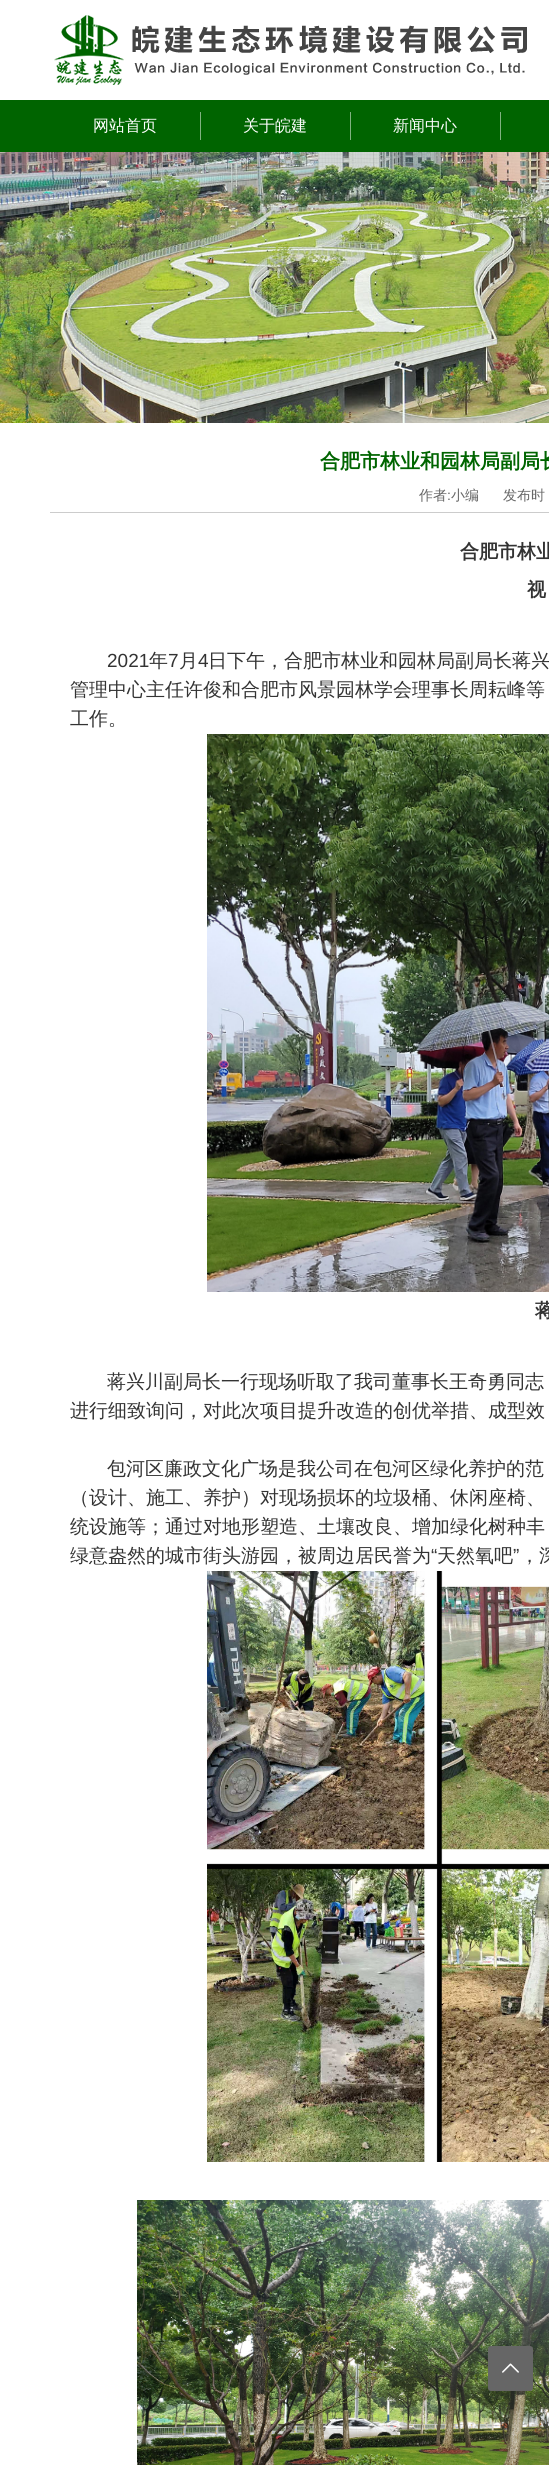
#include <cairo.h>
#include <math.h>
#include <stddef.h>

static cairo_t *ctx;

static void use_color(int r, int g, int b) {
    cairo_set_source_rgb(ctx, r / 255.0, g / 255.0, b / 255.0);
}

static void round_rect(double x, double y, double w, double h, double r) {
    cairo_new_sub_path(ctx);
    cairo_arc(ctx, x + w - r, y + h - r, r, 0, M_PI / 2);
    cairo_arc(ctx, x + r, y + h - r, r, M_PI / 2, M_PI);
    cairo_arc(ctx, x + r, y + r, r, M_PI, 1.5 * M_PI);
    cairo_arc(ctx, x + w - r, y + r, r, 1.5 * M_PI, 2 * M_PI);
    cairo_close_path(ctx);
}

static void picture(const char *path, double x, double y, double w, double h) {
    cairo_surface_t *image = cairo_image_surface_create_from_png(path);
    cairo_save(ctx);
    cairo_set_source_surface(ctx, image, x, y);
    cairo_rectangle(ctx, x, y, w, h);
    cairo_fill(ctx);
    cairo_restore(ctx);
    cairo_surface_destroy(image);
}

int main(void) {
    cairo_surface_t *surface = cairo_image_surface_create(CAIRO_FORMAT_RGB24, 549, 2465);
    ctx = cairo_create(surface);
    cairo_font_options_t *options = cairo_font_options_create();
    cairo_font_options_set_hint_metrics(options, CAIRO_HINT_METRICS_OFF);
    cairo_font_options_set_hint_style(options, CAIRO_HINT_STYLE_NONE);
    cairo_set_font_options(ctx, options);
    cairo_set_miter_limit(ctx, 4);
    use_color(255, 255, 255);
    cairo_paint(ctx);
    picture("img1.png", 54, 15, 473, 70);
    use_color(0, 100, 0);
    cairo_rectangle(ctx, 0, 100, 549, 52);
    cairo_fill(ctx);
    cairo_select_font_face(ctx, "WenQuanYi Zen Hei Medium", CAIRO_FONT_SLANT_NORMAL, CAIRO_FONT_WEIGHT_NORMAL);
    cairo_set_font_size(ctx, 16);
    use_color(255, 255, 255);
    cairo_move_to(ctx, 93, 131);
    cairo_show_text(ctx, "网站首页");
    use_color(128, 178, 128);
    cairo_rectangle(ctx, 200, 112, 1, 28);
    cairo_fill(ctx);
    use_color(255, 255, 255);
    cairo_move_to(ctx, 243, 131);
    cairo_show_text(ctx, "关于皖建");
    use_color(128, 178, 128);
    cairo_rectangle(ctx, 350, 112, 1, 28);
    cairo_fill(ctx);
    use_color(255, 255, 255);
    cairo_move_to(ctx, 393, 131);
    cairo_show_text(ctx, "新闻中心");
    use_color(128, 178, 128);
    cairo_rectangle(ctx, 500, 112, 1, 28);
    cairo_fill(ctx);
    picture("img2.png", 0, 152, 549, 271);
    use_color(204, 204, 204);
    cairo_rectangle(ctx, 50, 512, 499, 1);
    cairo_fill(ctx);
    cairo_select_font_face(ctx, "WenQuanYi Zen Hei", CAIRO_FONT_SLANT_NORMAL, CAIRO_FONT_WEIGHT_BOLD);
    cairo_set_font_size(ctx, 20);
    use_color(0, 100, 0);
    cairo_move_to(ctx, 320, 468);
    cairo_show_text(ctx, "合肥市林业和园林局副局长");
    cairo_select_font_face(ctx, "WenQuanYi Zen Hei Medium", CAIRO_FONT_SLANT_NORMAL, CAIRO_FONT_WEIGHT_NORMAL);
    cairo_set_font_size(ctx, 14);
    use_color(102, 102, 102);
    cairo_move_to(ctx, 419, 500);
    cairo_show_text(ctx, "作者");
    cairo_select_font_face(ctx, "Liberation Sans", CAIRO_FONT_SLANT_NORMAL, CAIRO_FONT_WEIGHT_NORMAL);
    cairo_move_to(ctx, 447, 500);
    cairo_show_text(ctx, ":");
    cairo_select_font_face(ctx, "WenQuanYi Zen Hei Medium", CAIRO_FONT_SLANT_NORMAL, CAIRO_FONT_WEIGHT_NORMAL);
    cairo_move_to(ctx, 451, 500);
    cairo_show_text(ctx, "小编");
    cairo_move_to(ctx, 503, 500);
    cairo_show_text(ctx, "发布时");
    cairo_select_font_face(ctx, "WenQuanYi Zen Hei", CAIRO_FONT_SLANT_NORMAL, CAIRO_FONT_WEIGHT_BOLD);
    cairo_set_font_size(ctx, 19);
    use_color(51, 51, 51);
    cairo_move_to(ctx, 460, 558);
    cairo_show_text(ctx, "合肥市林业");
    cairo_move_to(ctx, 527, 596);
    cairo_show_text(ctx, "视");
    cairo_select_font_face(ctx, "Liberation Sans", CAIRO_FONT_SLANT_NORMAL, CAIRO_FONT_WEIGHT_NORMAL);
    cairo_move_to(ctx, 107, 667);
    cairo_show_text(ctx, "2021");
    cairo_select_font_face(ctx, "WenQuanYi Zen Hei Medium", CAIRO_FONT_SLANT_NORMAL, CAIRO_FONT_WEIGHT_NORMAL);
    cairo_move_to(ctx, 149, 667);
    cairo_show_text(ctx, "年");
    cairo_select_font_face(ctx, "Liberation Sans", CAIRO_FONT_SLANT_NORMAL, CAIRO_FONT_WEIGHT_NORMAL);
    cairo_move_to(ctx, 168, 667);
    cairo_show_text(ctx, "7");
    cairo_select_font_face(ctx, "WenQuanYi Zen Hei Medium", CAIRO_FONT_SLANT_NORMAL, CAIRO_FONT_WEIGHT_NORMAL);
    cairo_move_to(ctx, 179, 667);
    cairo_show_text(ctx, "月");
    cairo_select_font_face(ctx, "Liberation Sans", CAIRO_FONT_SLANT_NORMAL, CAIRO_FONT_WEIGHT_NORMAL);
    cairo_move_to(ctx, 198, 667);
    cairo_show_text(ctx, "4");
    cairo_select_font_face(ctx, "WenQuanYi Zen Hei Medium", CAIRO_FONT_SLANT_NORMAL, CAIRO_FONT_WEIGHT_NORMAL);
    cairo_move_to(ctx, 208, 667);
    cairo_show_text(ctx, "日下午，合肥市林业和园林局副局长蒋兴");
    cairo_move_to(ctx, 70, 696);
    cairo_show_text(ctx, "管理中心主任许俊和合肥市风景园林学会理事长周耘峰等");
    cairo_move_to(ctx, 70, 725);
    cairo_show_text(ctx, "工作。");
    picture("img3.png", 207, 734, 342, 558);
    cairo_select_font_face(ctx, "WenQuanYi Zen Hei", CAIRO_FONT_SLANT_NORMAL, CAIRO_FONT_WEIGHT_BOLD);
    cairo_move_to(ctx, 535, 1317);
    cairo_show_text(ctx, "蒋");
    cairo_select_font_face(ctx, "WenQuanYi Zen Hei Medium", CAIRO_FONT_SLANT_NORMAL, CAIRO_FONT_WEIGHT_NORMAL);
    cairo_move_to(ctx, 107, 1388);
    cairo_show_text(ctx, "蒋兴川副局长一行现场听取了我司董事长王奇勇同志");
    cairo_move_to(ctx, 70, 1417);
    cairo_show_text(ctx, "进行细致询问，对此次项目提升改造的创优举措、成型效");
    cairo_move_to(ctx, 107, 1475);
    cairo_show_text(ctx, "包河区廉政文化广场是我公司在包河区绿化养护的范");
    cairo_move_to(ctx, 70, 1504);
    cairo_show_text(ctx, "（设计、施工、养护）对现场损坏的垃圾桶、休闲座椅、");
    cairo_move_to(ctx, 70, 1533);
    cairo_show_text(ctx, "统设施等；通过对地形塑造、土壤改良、增加绿化树种丰");
    cairo_move_to(ctx, 70, 1562);
    cairo_show_text(ctx, "绿意盎然的城市街头游园，被周边居民誉为");
    cairo_select_font_face(ctx, "Liberation Sans", CAIRO_FONT_SLANT_NORMAL, CAIRO_FONT_WEIGHT_NORMAL);
    cairo_move_to(ctx, 431, 1562);
    cairo_show_text(ctx, "“");
    cairo_select_font_face(ctx, "WenQuanYi Zen Hei Medium", CAIRO_FONT_SLANT_NORMAL, CAIRO_FONT_WEIGHT_NORMAL);
    cairo_move_to(ctx, 437, 1562);
    cairo_show_text(ctx, "天然氧吧");
    cairo_select_font_face(ctx, "Liberation Sans", CAIRO_FONT_SLANT_NORMAL, CAIRO_FONT_WEIGHT_NORMAL);
    cairo_move_to(ctx, 513, 1562);
    cairo_show_text(ctx, "”");
    cairo_select_font_face(ctx, "WenQuanYi Zen Hei Medium", CAIRO_FONT_SLANT_NORMAL, CAIRO_FONT_WEIGHT_NORMAL);
    cairo_move_to(ctx, 520, 1562);
    cairo_show_text(ctx, "，深");
    picture("img4.png", 207, 1571, 342, 591);
    picture("img5.png", 137, 2200, 412, 265);
    use_color(102, 102, 102);
    round_rect(488, 2346, 45, 45, 3);
    cairo_fill(ctx);
    picture("img6.png", 502, 2363, 17, 10);
    cairo_surface_write_to_png(surface, "result.png");
    cairo_font_options_destroy(options);
    cairo_destroy(ctx);
    cairo_surface_destroy(surface);
    return 0;
}
